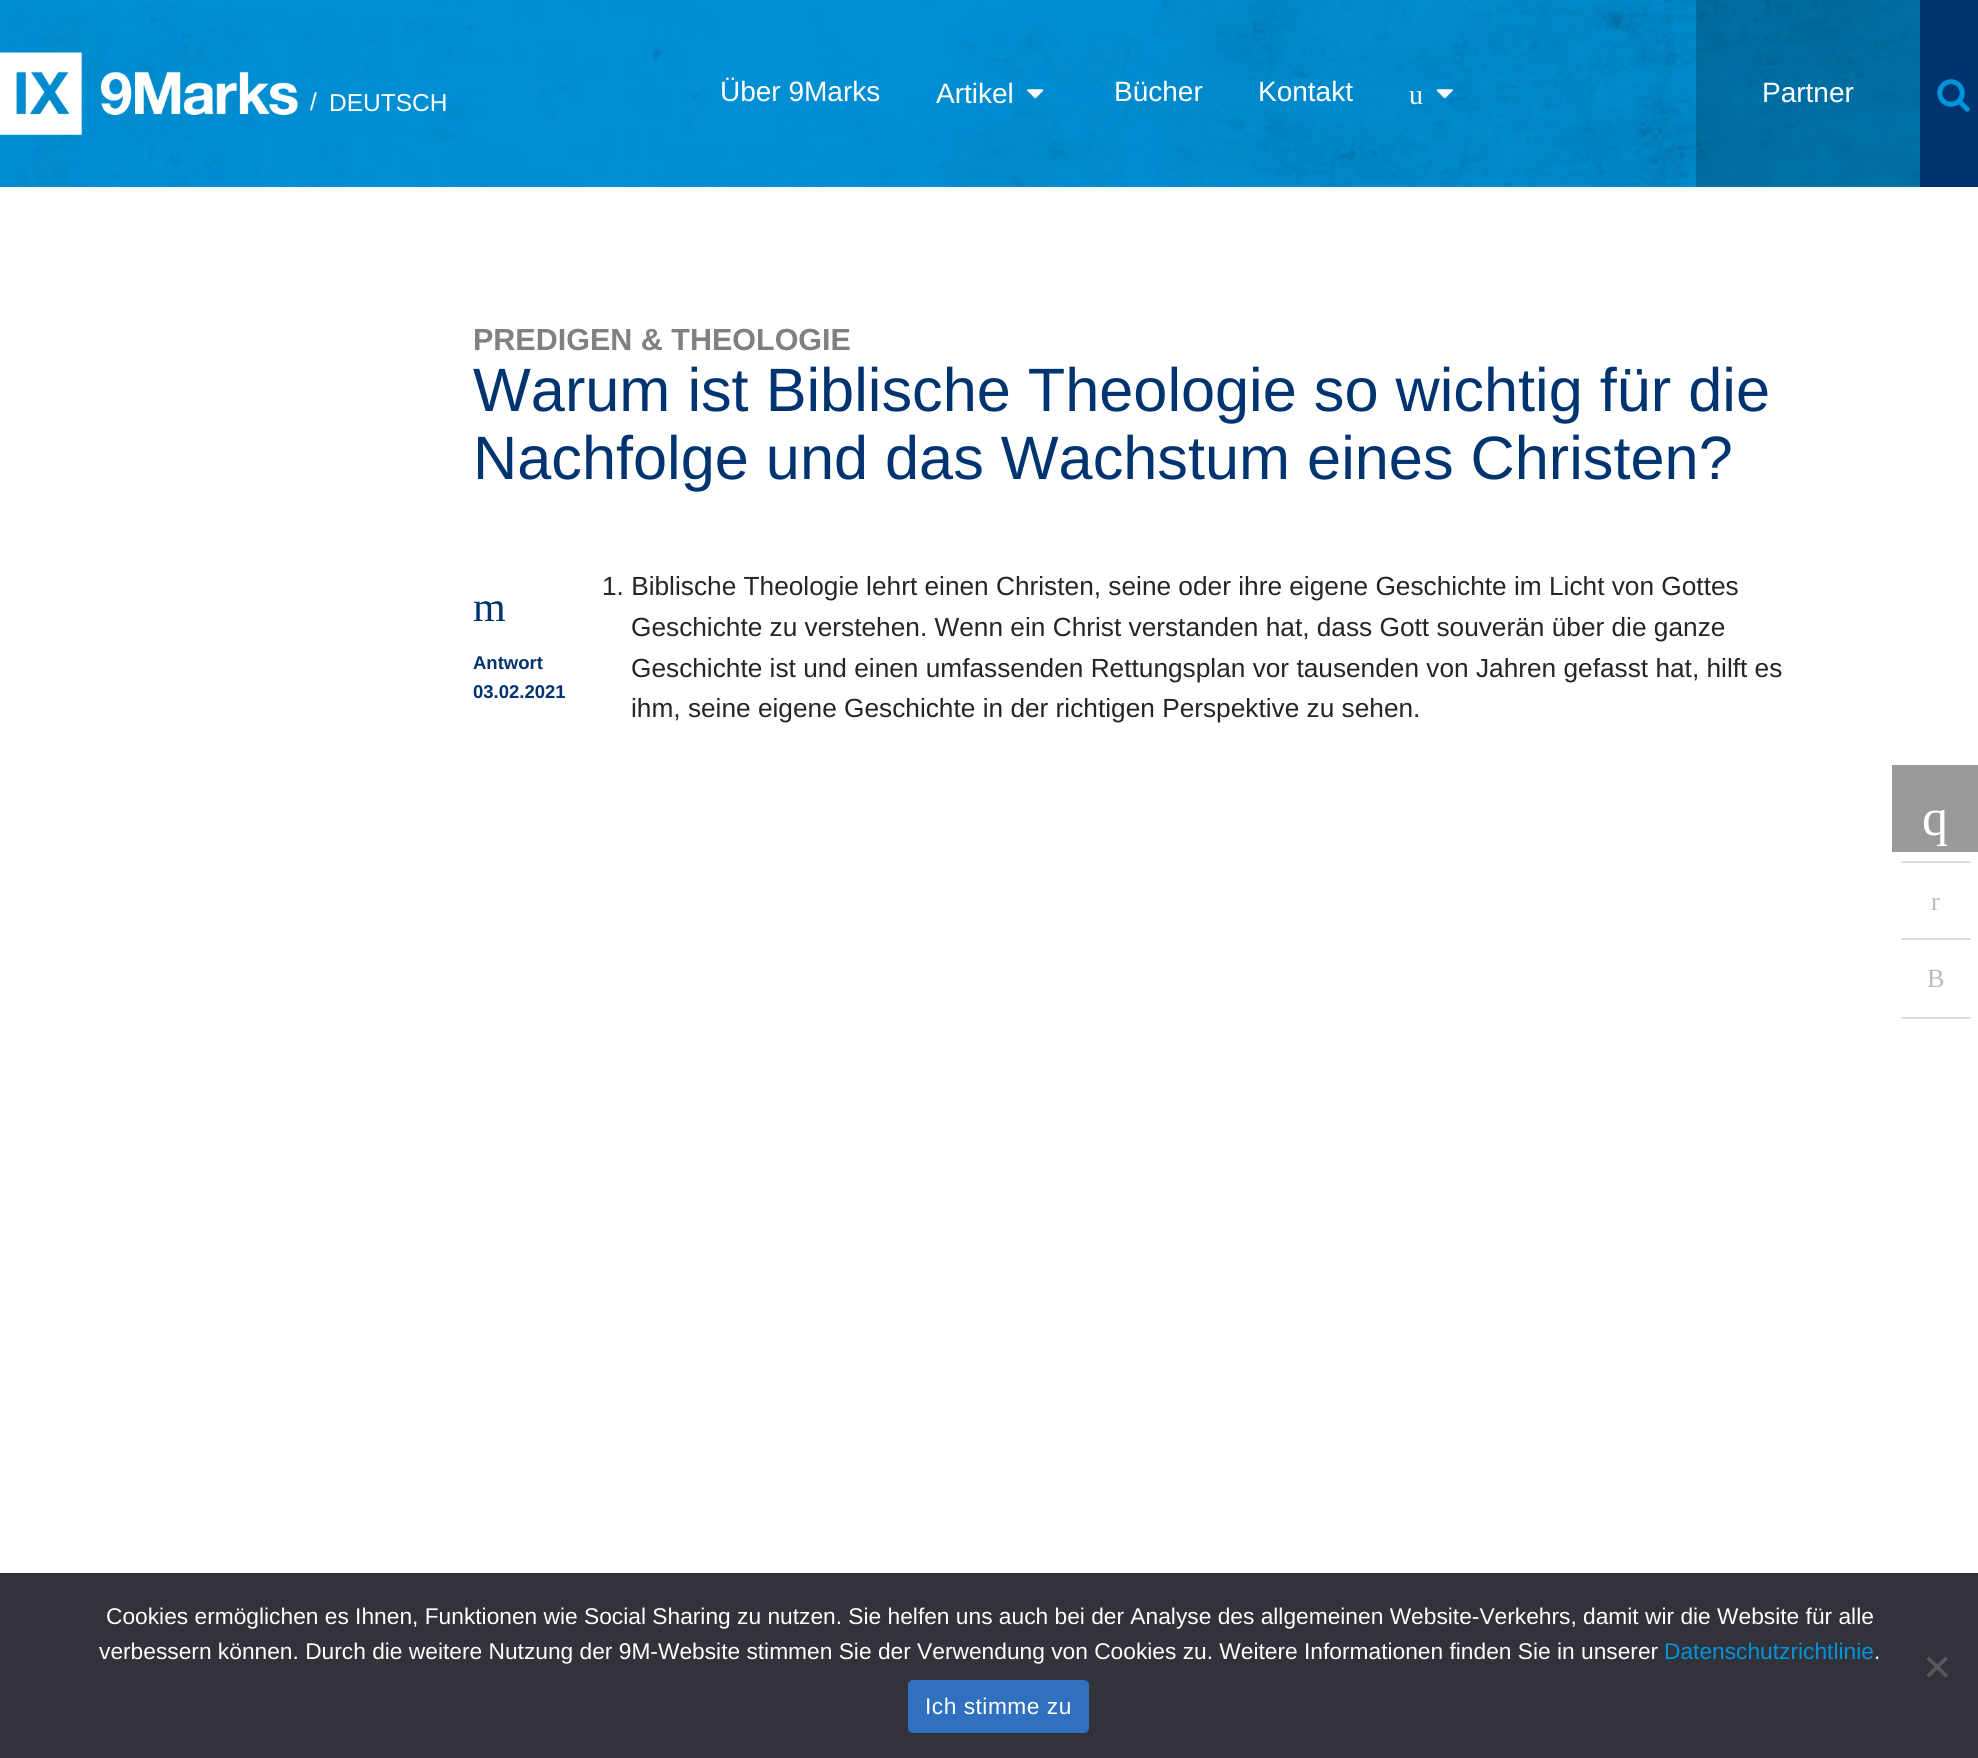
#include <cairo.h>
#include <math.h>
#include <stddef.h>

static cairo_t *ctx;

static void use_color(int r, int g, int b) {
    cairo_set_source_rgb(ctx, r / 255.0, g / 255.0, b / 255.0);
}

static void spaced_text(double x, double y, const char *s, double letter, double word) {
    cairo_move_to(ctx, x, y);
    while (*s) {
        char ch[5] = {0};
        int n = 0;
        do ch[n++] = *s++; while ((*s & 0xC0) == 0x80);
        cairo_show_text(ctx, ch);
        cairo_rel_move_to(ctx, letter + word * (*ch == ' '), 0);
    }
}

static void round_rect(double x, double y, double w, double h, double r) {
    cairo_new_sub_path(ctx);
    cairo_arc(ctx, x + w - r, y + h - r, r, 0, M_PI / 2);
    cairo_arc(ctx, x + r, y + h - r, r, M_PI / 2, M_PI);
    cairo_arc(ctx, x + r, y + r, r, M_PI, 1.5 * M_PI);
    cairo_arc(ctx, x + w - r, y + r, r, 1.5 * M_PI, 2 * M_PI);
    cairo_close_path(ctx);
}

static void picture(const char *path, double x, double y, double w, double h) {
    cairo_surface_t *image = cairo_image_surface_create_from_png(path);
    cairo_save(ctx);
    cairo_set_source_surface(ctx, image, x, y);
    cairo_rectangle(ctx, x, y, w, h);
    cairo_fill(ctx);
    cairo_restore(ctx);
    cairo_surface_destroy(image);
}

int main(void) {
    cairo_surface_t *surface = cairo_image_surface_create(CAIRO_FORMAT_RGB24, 1978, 1758);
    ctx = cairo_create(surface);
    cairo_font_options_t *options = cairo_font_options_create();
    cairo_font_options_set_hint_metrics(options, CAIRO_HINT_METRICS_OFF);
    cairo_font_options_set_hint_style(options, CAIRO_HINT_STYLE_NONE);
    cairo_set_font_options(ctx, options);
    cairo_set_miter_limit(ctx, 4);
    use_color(255, 255, 255);
    cairo_paint(ctx);
    picture("img1.png", 0, 0, 1920, 187);
    picture("img2.png", 0, 52, 298, 83);
    cairo_select_font_face(ctx, "Liberation Sans", CAIRO_FONT_SLANT_NORMAL, CAIRO_FONT_WEIGHT_NORMAL);
    cairo_set_font_size(ctx, 24.5);
    use_color(255, 255, 255);
    cairo_move_to(ctx, 310, 110);
    cairo_show_text(ctx, "/");
    cairo_move_to(ctx, 329, 111);
    cairo_show_text(ctx, "DEUTSCH");
    cairo_set_font_size(ctx, 28);
    cairo_move_to(ctx, 720, 101);
    cairo_show_text(ctx, "Über 9Marks");
    cairo_move_to(ctx, 936, 103);
    cairo_show_text(ctx, "Artikel");
    picture("img3.png", 1027, 89, 17, 10);
    cairo_move_to(ctx, 1114, 101);
    cairo_show_text(ctx, "Bücher");
    cairo_move_to(ctx, 1258, 101);
    cairo_show_text(ctx, "Kontakt");
    cairo_select_font_face(ctx, "Liberation Serif", CAIRO_FONT_SLANT_NORMAL, CAIRO_FONT_WEIGHT_NORMAL);
    cairo_move_to(ctx, 1409, 104);
    cairo_show_text(ctx, "u");
    picture("img4.png", 1436, 89, 17, 10);
    cairo_set_source_rgba(ctx, 0, 0, 0, 0.2);
    cairo_rectangle(ctx, 1696, 0, 224, 187);
    cairo_fill(ctx);
    cairo_select_font_face(ctx, "Liberation Sans", CAIRO_FONT_SLANT_NORMAL, CAIRO_FONT_WEIGHT_NORMAL);
    use_color(255, 255, 255);
    cairo_move_to(ctx, 1762, 102);
    cairo_show_text(ctx, "Partner");
    use_color(0, 52, 113);
    cairo_rectangle(ctx, 1920, 0, 58, 187);
    cairo_fill(ctx);
    picture("img5.png", 1937, 79, 33, 33);
    cairo_select_font_face(ctx, "Liberation Sans", CAIRO_FONT_SLANT_NORMAL, CAIRO_FONT_WEIGHT_BOLD);
    cairo_set_font_size(ctx, 30.5);
    use_color(128, 128, 128);
    cairo_move_to(ctx, 473, 350);
    cairo_show_text(ctx, "PREDIGEN & THEOLOGIE");
    cairo_select_font_face(ctx, "Liberation Sans", CAIRO_FONT_SLANT_NORMAL, CAIRO_FONT_WEIGHT_NORMAL);
    cairo_set_font_size(ctx, 61.25);
    use_color(0, 52, 113);
    cairo_move_to(ctx, 473, 411);
    cairo_show_text(ctx, "Warum ist Biblische Theologie so wichtig für die");
    cairo_move_to(ctx, 473, 479);
    cairo_show_text(ctx, "Nachfolge und das Wachstum eines Christen?");
    cairo_select_font_face(ctx, "Liberation Serif", CAIRO_FONT_SLANT_NORMAL, CAIRO_FONT_WEIGHT_NORMAL);
    cairo_set_font_size(ctx, 42);
    cairo_move_to(ctx, 473, 621);
    cairo_show_text(ctx, "m");
    cairo_select_font_face(ctx, "Liberation Sans", CAIRO_FONT_SLANT_NORMAL, CAIRO_FONT_WEIGHT_BOLD);
    cairo_set_font_size(ctx, 18.5);
    cairo_move_to(ctx, 473, 669);
    cairo_show_text(ctx, "Antwort");
    cairo_move_to(ctx, 473, 698);
    cairo_show_text(ctx, "03.02.2021");
    cairo_select_font_face(ctx, "Liberation Sans", CAIRO_FONT_SLANT_NORMAL, CAIRO_FONT_WEIGHT_NORMAL);
    cairo_set_font_size(ctx, 26.25);
    use_color(37, 37, 37);
    cairo_move_to(ctx, 602, 595);
    cairo_show_text(ctx, "1. Biblische Theologie lehrt einen Christen, seine oder ihre eigene Geschichte im Licht von Gottes");
    cairo_move_to(ctx, 631, 636);
    cairo_show_text(ctx, "Geschichte zu verstehen. Wenn ein Christ verstanden hat, dass Gott souverän über die ganze");
    cairo_move_to(ctx, 631, 677);
    cairo_show_text(ctx, "Geschichte ist und einen umfassenden Rettungsplan vor tausenden von Jahren gefasst hat, hilft es");
    cairo_move_to(ctx, 631, 717);
    cairo_show_text(ctx, "ihm, seine eigene Geschichte in der richtigen Perspektive zu sehen.");
    use_color(153, 153, 153);
    cairo_rectangle(ctx, 1892, 765, 86, 87);
    cairo_fill(ctx);
    cairo_select_font_face(ctx, "Liberation Serif", CAIRO_FONT_SLANT_NORMAL, CAIRO_FONT_WEIGHT_NORMAL);
    cairo_set_font_size(ctx, 52);
    use_color(255, 255, 255);
    cairo_move_to(ctx, 1922, 835);
    cairo_show_text(ctx, "q");
    use_color(220, 220, 220);
    cairo_rectangle(ctx, 1901, 861, 70, 2);
    cairo_fill(ctx);
    cairo_set_font_size(ctx, 26.25);
    use_color(187, 187, 187);
    cairo_move_to(ctx, 1931, 910);
    cairo_show_text(ctx, "r");
    use_color(220, 220, 220);
    cairo_rectangle(ctx, 1901, 938, 70, 2);
    cairo_fill(ctx);
    cairo_rectangle(ctx, 1901, 1017, 70, 2);
    cairo_fill(ctx);
    use_color(187, 187, 187);
    cairo_move_to(ctx, 1927, 987);
    cairo_show_text(ctx, "B");
    use_color(50, 50, 58);
    cairo_rectangle(ctx, 0, 1573, 1978, 185);
    cairo_fill(ctx);
    cairo_select_font_face(ctx, "Liberation Sans", CAIRO_FONT_SLANT_NORMAL, CAIRO_FONT_WEIGHT_NORMAL);
    cairo_set_font_size(ctx, 22.75);
    use_color(255, 255, 255);
    cairo_move_to(ctx, 106, 1624);
    cairo_show_text(ctx, "Cookies ermöglichen es Ihnen, Funktionen wie Social Sharing zu nutzen. Sie helfen uns auch bei der Analyse des allgemeinen Website-Verkehrs, damit wir die Website für alle");
    cairo_move_to(ctx, 99, 1659);
    cairo_show_text(ctx, "verbessern können. Durch die weitere Nutzung der 9M-Website stimmen Sie der Verwendung von Cookies zu. Weitere Informationen finden Sie in unserer");
    use_color(0, 149, 218);
    cairo_move_to(ctx, 1664, 1659);
    cairo_show_text(ctx, "Datenschutzrichtlinie");
    use_color(255, 255, 255);
    cairo_move_to(ctx, 1874, 1659);
    cairo_show_text(ctx, ".");
    use_color(89, 89, 93);
    cairo_new_path(ctx);
    cairo_move_to(ctx, 1945.5, 1656.5);
    cairo_line_to(ctx, 1948, 1659);
    cairo_line_to(ctx, 1929, 1677.5);
    cairo_line_to(ctx, 1926.5, 1675);
    cairo_close_path(ctx);
    cairo_fill(ctx);
    cairo_new_path(ctx);
    cairo_move_to(ctx, 1926.5, 1659);
    cairo_line_to(ctx, 1929, 1656.5);
    cairo_line_to(ctx, 1948, 1675);
    cairo_line_to(ctx, 1945.5, 1677.5);
    cairo_close_path(ctx);
    cairo_fill(ctx);
    use_color(47, 113, 190);
    round_rect(908, 1680, 181, 53, 5);
    cairo_fill(ctx);
    use_color(255, 255, 255);
    spaced_text(925, 1714, "Ich stimme zu", 0.5, 0);
    cairo_surface_write_to_png(surface, "result.png");
    cairo_font_options_destroy(options);
    cairo_destroy(ctx);
    cairo_surface_destroy(surface);
    return 0;
}
